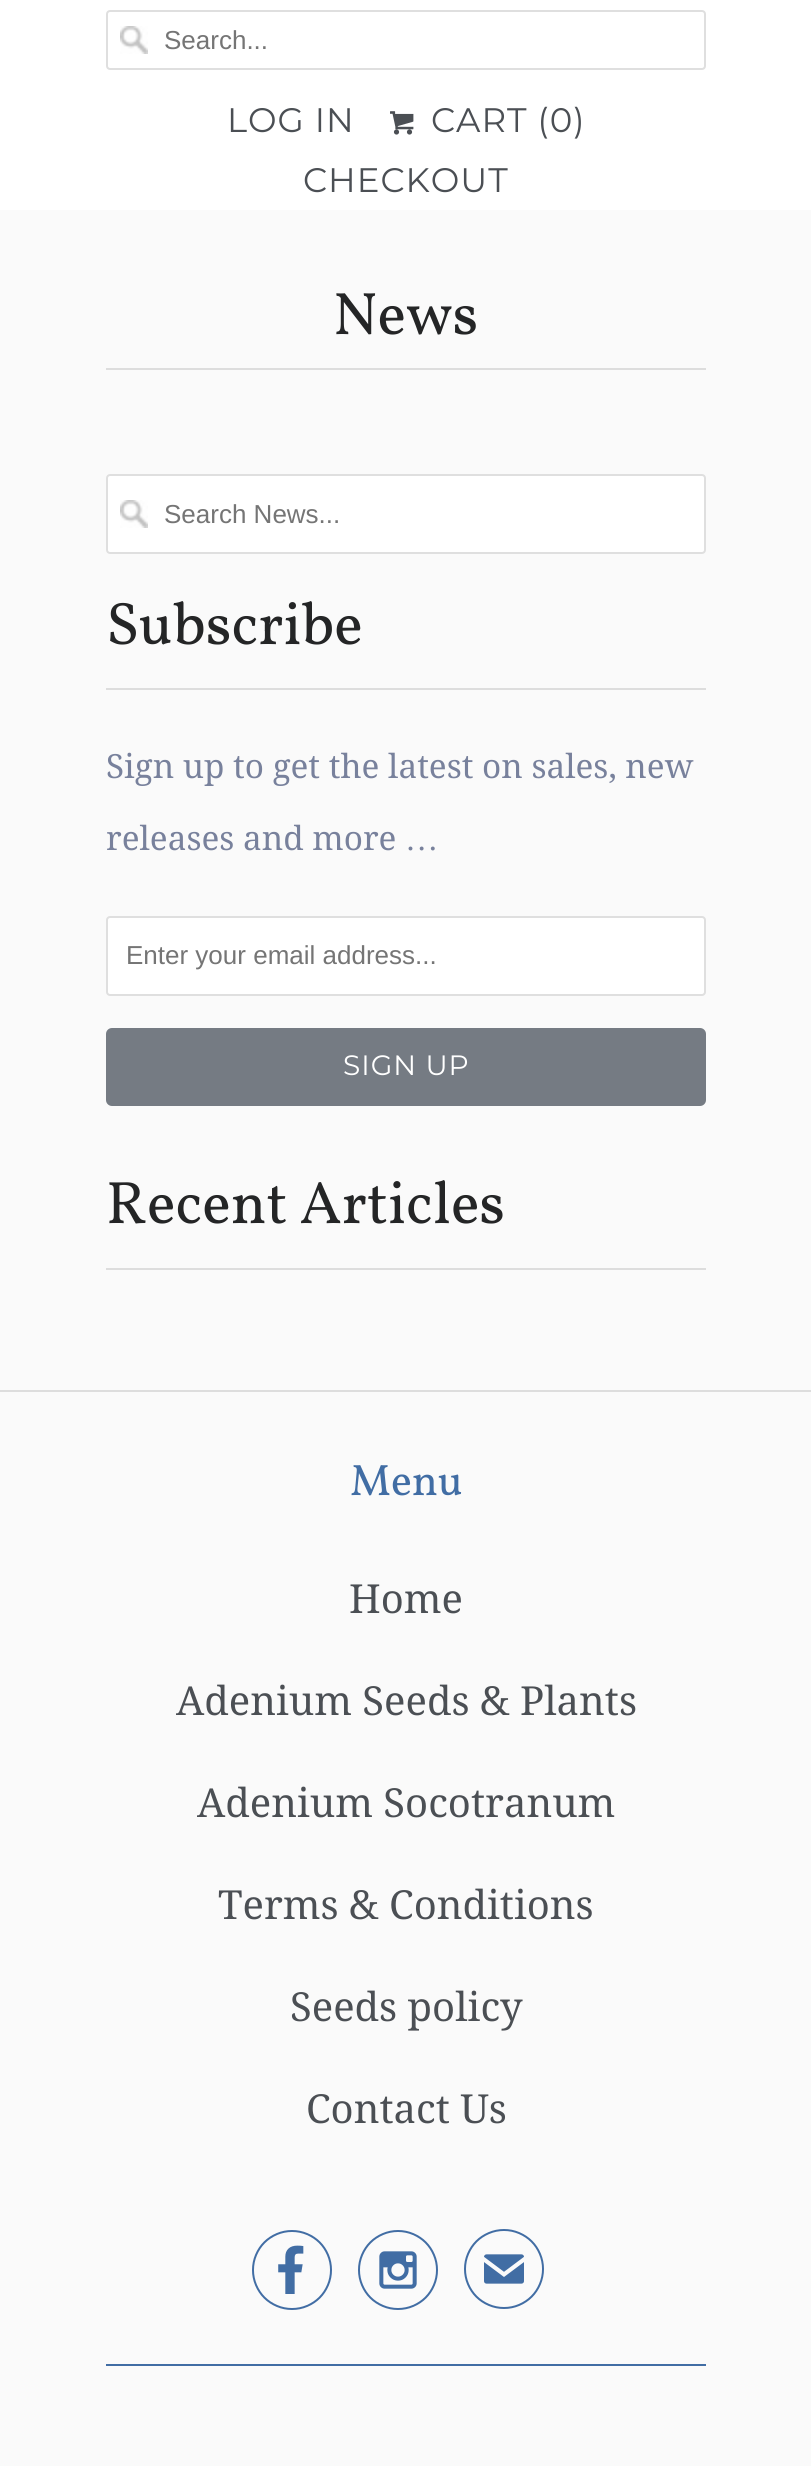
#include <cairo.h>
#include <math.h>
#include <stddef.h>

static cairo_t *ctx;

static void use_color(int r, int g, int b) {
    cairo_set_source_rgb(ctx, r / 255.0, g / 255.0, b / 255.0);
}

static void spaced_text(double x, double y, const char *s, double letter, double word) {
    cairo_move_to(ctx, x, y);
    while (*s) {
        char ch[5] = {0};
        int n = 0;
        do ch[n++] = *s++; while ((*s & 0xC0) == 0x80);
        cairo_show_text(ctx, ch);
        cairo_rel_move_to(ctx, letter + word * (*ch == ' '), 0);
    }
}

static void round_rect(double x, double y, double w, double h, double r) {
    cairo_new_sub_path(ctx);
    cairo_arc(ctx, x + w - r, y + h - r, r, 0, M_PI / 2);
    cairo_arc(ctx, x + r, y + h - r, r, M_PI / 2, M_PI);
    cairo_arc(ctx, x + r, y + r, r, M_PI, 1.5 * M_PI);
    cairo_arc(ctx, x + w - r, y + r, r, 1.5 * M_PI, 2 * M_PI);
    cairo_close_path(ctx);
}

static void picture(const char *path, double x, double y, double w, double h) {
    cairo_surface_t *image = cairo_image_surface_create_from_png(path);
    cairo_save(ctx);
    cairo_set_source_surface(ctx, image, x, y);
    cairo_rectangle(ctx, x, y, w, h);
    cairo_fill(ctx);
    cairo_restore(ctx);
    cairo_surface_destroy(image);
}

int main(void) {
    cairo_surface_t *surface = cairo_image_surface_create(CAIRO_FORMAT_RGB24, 811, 2466);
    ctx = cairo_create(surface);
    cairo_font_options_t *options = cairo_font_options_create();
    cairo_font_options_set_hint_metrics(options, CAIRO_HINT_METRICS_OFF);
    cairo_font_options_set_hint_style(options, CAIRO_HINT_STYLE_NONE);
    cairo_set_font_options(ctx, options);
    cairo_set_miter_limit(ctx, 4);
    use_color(250, 250, 250);
    cairo_paint(ctx);
    use_color(255, 255, 255);
    cairo_rectangle(ctx, 0, 0, 811, 210);
    cairo_fill(ctx);
    picture("img1.png", 120, 26, 28, 28);
    round_rect(107, 11, 598, 58, 3);
    use_color(223, 223, 223);
    cairo_stroke(ctx);
    cairo_select_font_face(ctx, "Liberation Sans", CAIRO_FONT_SLANT_NORMAL, CAIRO_FONT_WEIGHT_NORMAL);
    cairo_set_font_size(ctx, 26);
    use_color(117, 117, 117);
    cairo_move_to(ctx, 164, 49);
    cairo_show_text(ctx, "Search...");
    cairo_select_font_face(ctx, "Montserrat", CAIRO_FONT_SLANT_NORMAL, CAIRO_FONT_WEIGHT_NORMAL);
    cairo_set_font_size(ctx, 34);
    use_color(75, 79, 84);
    spaced_text(227, 132, "LOG IN", 1, 0);
    picture("img2.png", 390, 111, 24, 24);
    spaced_text(431, 132, "CART (0)", 1, 0);
    spaced_text(303, 192, "CHECKOUT", 1, 0);
    use_color(221, 221, 221);
    cairo_rectangle(ctx, 106, 368, 600, 2);
    cairo_fill(ctx);
    cairo_select_font_face(ctx, "Vollkorn", CAIRO_FONT_SLANT_NORMAL, CAIRO_FONT_WEIGHT_NORMAL);
    cairo_set_font_size(ctx, 60);
    use_color(36, 37, 38);
    cairo_move_to(ctx, 333, 334);
    cairo_show_text(ctx, "News");
    use_color(255, 255, 255);
    round_rect(106, 474, 600, 80, 4);
    cairo_fill(ctx);
    picture("img1.png", 120, 500, 28, 28);
    round_rect(107, 475, 598, 78, 3);
    use_color(223, 223, 223);
    cairo_stroke(ctx);
    cairo_select_font_face(ctx, "Liberation Sans", CAIRO_FONT_SLANT_NORMAL, CAIRO_FONT_WEIGHT_NORMAL);
    cairo_set_font_size(ctx, 26);
    use_color(117, 117, 117);
    cairo_move_to(ctx, 164, 523);
    cairo_show_text(ctx, "Search News...");
    use_color(221, 221, 221);
    cairo_rectangle(ctx, 106, 688, 600, 2);
    cairo_fill(ctx);
    cairo_select_font_face(ctx, "Vollkorn", CAIRO_FONT_SLANT_NORMAL, CAIRO_FONT_WEIGHT_NORMAL);
    cairo_set_font_size(ctx, 60);
    use_color(36, 37, 38);
    cairo_move_to(ctx, 106, 644);
    cairo_show_text(ctx, "Subscribe");
    cairo_select_font_face(ctx, "Droid Serif", CAIRO_FONT_SLANT_NORMAL, CAIRO_FONT_WEIGHT_NORMAL);
    cairo_set_font_size(ctx, 33.3);
    use_color(120, 129, 156);
    cairo_move_to(ctx, 106, 778);
    cairo_show_text(ctx, "Sign up to get the latest on sales, new");
    cairo_move_to(ctx, 106, 850);
    cairo_show_text(ctx, "releases and more");
    cairo_select_font_face(ctx, "Liberation Serif", CAIRO_FONT_SLANT_NORMAL, CAIRO_FONT_WEIGHT_NORMAL);
    cairo_move_to(ctx, 405, 850);
    cairo_show_text(ctx, "…");
    use_color(255, 255, 255);
    round_rect(107, 917, 598, 78, 3);
    cairo_fill_preserve(ctx);
    use_color(223, 223, 223);
    cairo_stroke(ctx);
    cairo_select_font_face(ctx, "Liberation Sans", CAIRO_FONT_SLANT_NORMAL, CAIRO_FONT_WEIGHT_NORMAL);
    cairo_set_font_size(ctx, 26);
    use_color(117, 117, 117);
    cairo_move_to(ctx, 126, 964);
    cairo_show_text(ctx, "Enter your email address...");
    use_color(117, 123, 131);
    round_rect(107, 1029, 598, 76, 5);
    cairo_fill_preserve(ctx);
    cairo_stroke(ctx);
    cairo_select_font_face(ctx, "Montserrat", CAIRO_FONT_SLANT_NORMAL, CAIRO_FONT_WEIGHT_NORMAL);
    cairo_set_font_size(ctx, 28);
    use_color(255, 255, 255);
    spaced_text(343, 1075, "SIGN UP", 1, 0);
    use_color(221, 221, 221);
    cairo_rectangle(ctx, 106, 1268, 600, 2);
    cairo_fill(ctx);
    cairo_select_font_face(ctx, "Vollkorn", CAIRO_FONT_SLANT_NORMAL, CAIRO_FONT_WEIGHT_NORMAL);
    cairo_set_font_size(ctx, 60);
    use_color(36, 37, 38);
    cairo_move_to(ctx, 106, 1223);
    cairo_show_text(ctx, "Recent Articles");
    use_color(221, 221, 221);
    cairo_rectangle(ctx, 0, 1390, 811, 2);
    cairo_fill(ctx);
    cairo_set_font_size(ctx, 44);
    use_color(65, 109, 164);
    cairo_move_to(ctx, 350, 1495);
    cairo_show_text(ctx, "Menu");
    cairo_select_font_face(ctx, "Droid Serif", CAIRO_FONT_SLANT_NORMAL, CAIRO_FONT_WEIGHT_NORMAL);
    cairo_set_font_size(ctx, 40);
    use_color(75, 79, 84);
    cairo_move_to(ctx, 349, 1613);
    cairo_show_text(ctx, "Home");
    cairo_move_to(ctx, 176, 1715);
    cairo_show_text(ctx, "Adenium Seeds & Plants");
    cairo_move_to(ctx, 197, 1817);
    cairo_show_text(ctx, "Adenium Socotranum");
    cairo_move_to(ctx, 218, 1919);
    cairo_show_text(ctx, "Terms & Conditions");
    cairo_move_to(ctx, 290, 2021);
    cairo_show_text(ctx, "Seeds policy");
    cairo_move_to(ctx, 306, 2123);
    cairo_show_text(ctx, "Contact Us");
    picture("img3.png", 252, 2230, 80, 80);
    picture("img4.png", 358, 2230, 80, 80);
    cairo_select_font_face(ctx, "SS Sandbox", CAIRO_FONT_SLANT_NORMAL, CAIRO_FONT_WEIGHT_NORMAL);
    cairo_set_font_size(ctx, 80);
    use_color(65, 109, 164);
    cairo_move_to(ctx, 464, 2309);
    cairo_show_text(ctx, "✉");
    cairo_rectangle(ctx, 106, 2364, 600, 2);
    cairo_fill(ctx);
    cairo_surface_write_to_png(surface, "result.png");
    cairo_font_options_destroy(options);
    cairo_destroy(ctx);
    cairo_surface_destroy(surface);
    return 0;
}
